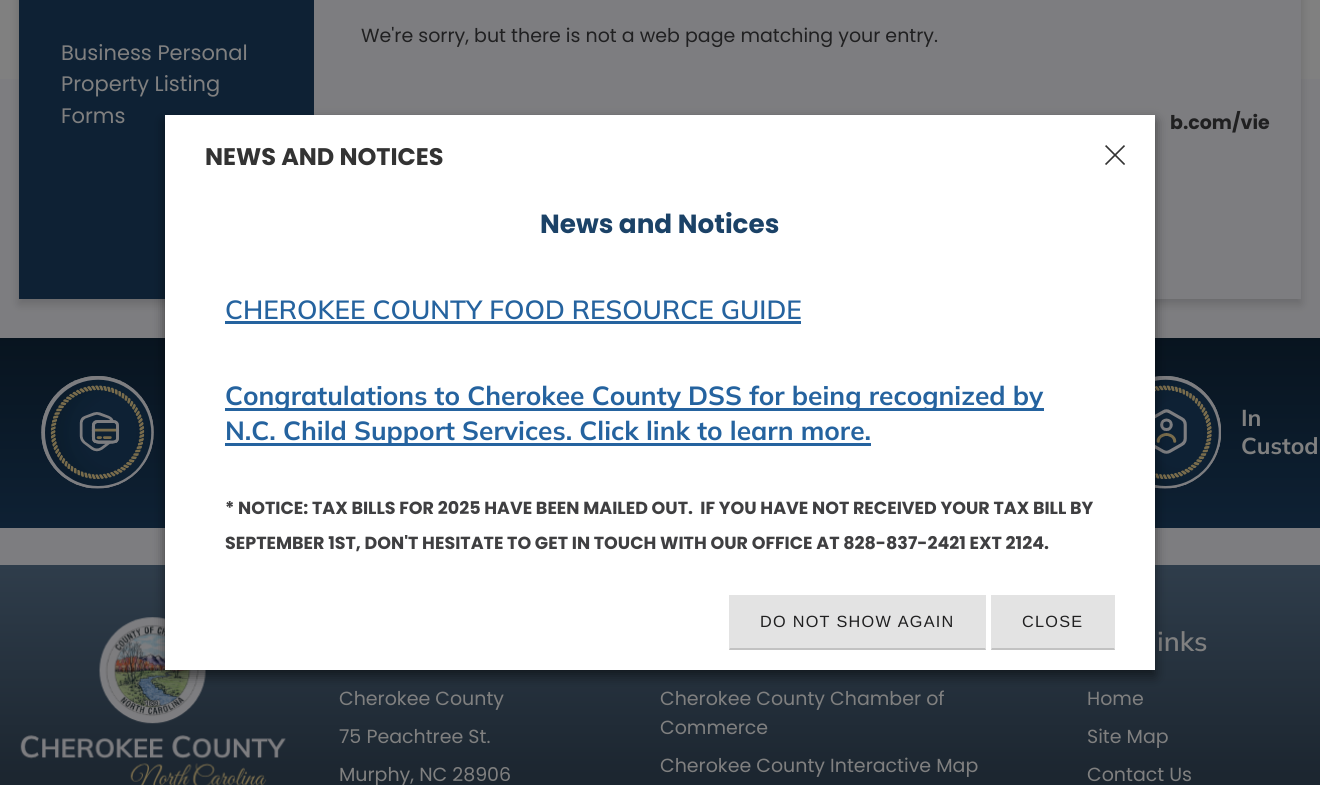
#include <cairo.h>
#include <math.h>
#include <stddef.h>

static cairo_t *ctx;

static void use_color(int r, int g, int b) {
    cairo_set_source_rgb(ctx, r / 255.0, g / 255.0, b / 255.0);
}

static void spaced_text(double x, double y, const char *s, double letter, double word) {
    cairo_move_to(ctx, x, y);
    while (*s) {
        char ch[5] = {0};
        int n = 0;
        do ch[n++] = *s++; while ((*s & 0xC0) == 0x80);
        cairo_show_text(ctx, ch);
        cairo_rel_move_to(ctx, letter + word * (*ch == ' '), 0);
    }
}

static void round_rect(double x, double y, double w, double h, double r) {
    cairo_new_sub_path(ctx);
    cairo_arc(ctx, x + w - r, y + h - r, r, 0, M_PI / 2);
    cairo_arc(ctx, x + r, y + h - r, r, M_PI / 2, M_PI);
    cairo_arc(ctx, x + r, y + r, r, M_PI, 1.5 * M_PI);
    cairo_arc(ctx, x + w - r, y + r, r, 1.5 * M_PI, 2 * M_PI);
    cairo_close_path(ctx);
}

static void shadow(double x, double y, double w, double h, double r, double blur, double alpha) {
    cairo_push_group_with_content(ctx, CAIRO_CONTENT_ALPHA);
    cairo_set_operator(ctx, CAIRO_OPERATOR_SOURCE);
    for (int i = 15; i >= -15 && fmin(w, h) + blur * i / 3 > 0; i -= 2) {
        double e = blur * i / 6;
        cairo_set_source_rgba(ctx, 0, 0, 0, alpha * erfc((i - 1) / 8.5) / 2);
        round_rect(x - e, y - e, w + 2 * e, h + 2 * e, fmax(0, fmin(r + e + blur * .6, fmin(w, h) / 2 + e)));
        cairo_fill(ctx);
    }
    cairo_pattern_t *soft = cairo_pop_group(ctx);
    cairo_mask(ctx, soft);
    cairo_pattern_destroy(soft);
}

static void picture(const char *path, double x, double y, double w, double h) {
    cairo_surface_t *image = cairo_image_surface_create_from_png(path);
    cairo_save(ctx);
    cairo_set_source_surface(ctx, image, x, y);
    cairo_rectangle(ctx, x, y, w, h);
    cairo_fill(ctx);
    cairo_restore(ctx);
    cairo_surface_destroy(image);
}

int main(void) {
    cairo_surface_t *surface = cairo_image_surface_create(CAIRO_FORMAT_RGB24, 1320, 785);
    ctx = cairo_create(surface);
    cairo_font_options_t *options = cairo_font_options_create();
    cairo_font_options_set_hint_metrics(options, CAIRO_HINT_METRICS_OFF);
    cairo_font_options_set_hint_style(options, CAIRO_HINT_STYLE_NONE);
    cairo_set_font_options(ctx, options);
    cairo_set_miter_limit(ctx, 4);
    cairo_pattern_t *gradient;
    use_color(125, 125, 128);
    cairo_paint(ctx);
    use_color(128, 128, 128);
    cairo_rectangle(ctx, 0, 0, 1320, 79);
    cairo_fill(ctx);
    use_color(0, 0, 0);
    shadow(19, -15, 1282, 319, 0, 5, 0.16);
    use_color(125, 125, 128);
    cairo_rectangle(ctx, 314, 0, 987, 299);
    cairo_fill(ctx);
    use_color(14, 33, 52);
    cairo_rectangle(ctx, 19, 0, 295, 299);
    cairo_fill(ctx);
    cairo_select_font_face(ctx, "Poppins", CAIRO_FONT_SLANT_NORMAL, CAIRO_FONT_WEIGHT_NORMAL);
    cairo_set_font_size(ctx, 21);
    use_color(128, 128, 128);
    cairo_move_to(ctx, 61, 60);
    cairo_show_text(ctx, "Business Personal");
    cairo_move_to(ctx, 61, 91);
    cairo_show_text(ctx, "Property Listing");
    cairo_move_to(ctx, 61, 123);
    cairo_show_text(ctx, "Forms");
    cairo_set_font_size(ctx, 19);
    use_color(32, 32, 33);
    cairo_move_to(ctx, 361, 42);
    cairo_show_text(ctx, "We're sorry, but there is not a web page matching your entry.");
    cairo_select_font_face(ctx, "Poppins", CAIRO_FONT_SLANT_NORMAL, CAIRO_FONT_WEIGHT_BOLD);
    cairo_move_to(ctx, 1170, 129);
    cairo_show_text(ctx, "b.com/vie");
    gradient = cairo_pattern_create_linear(660, 337, 660, 528);
    cairo_pattern_add_color_stop_rgba(gradient, 0, 0.031, 0.078, 0.122, 1);
    cairo_pattern_add_color_stop_rgba(gradient, 1, 0.055, 0.129, 0.204, 1);
    cairo_set_source(ctx, gradient);
    cairo_pattern_destroy(gradient);
    cairo_rectangle(ctx, 0, 338, 1320, 190);
    cairo_fill(ctx);
    picture("img1.png", 41, 376, 113, 113);
    picture("img2.png", 41, 376, 113, 113);
    picture("img3.png", 79, 412, 41, 40);
    picture("img4.png", 1155, 376, 66, 113);
    picture("img5.png", 1155, 376, 66, 113);
    picture("img6.png", 1155, 409, 32, 45);
    cairo_select_font_face(ctx, "Mulish", CAIRO_FONT_SLANT_NORMAL, CAIRO_FONT_WEIGHT_BOLD);
    cairo_set_font_size(ctx, 23);
    use_color(128, 128, 128);
    cairo_move_to(ctx, 1241, 426);
    cairo_show_text(ctx, "In");
    cairo_move_to(ctx, 1241, 454);
    cairo_show_text(ctx, "Custod");
    gradient = cairo_pattern_create_linear(660, 565, 660, 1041);
    cairo_pattern_add_color_stop_rgba(gradient, 0, 0.184, 0.239, 0.294, 1);
    cairo_pattern_add_color_stop_rgba(gradient, 1, 0.016, 0.035, 0.055, 1);
    cairo_set_source(ctx, gradient);
    cairo_pattern_destroy(gradient);
    cairo_rectangle(ctx, 0, 565, 1320, 220);
    cairo_fill(ctx);
    picture("img7.png", 20, 617, 266, 168);
    cairo_select_font_face(ctx, "Poppins", CAIRO_FONT_SLANT_NORMAL, CAIRO_FONT_WEIGHT_NORMAL);
    cairo_set_font_size(ctx, 19);
    use_color(128, 128, 128);
    cairo_move_to(ctx, 339, 705);
    cairo_show_text(ctx, "Cherokee County");
    cairo_move_to(ctx, 339, 743);
    cairo_show_text(ctx, "75 Peachtree St.");
    cairo_move_to(ctx, 339, 781);
    cairo_show_text(ctx, "Murphy, NC 28906");
    cairo_move_to(ctx, 660, 705);
    cairo_show_text(ctx, "Cherokee County Chamber of");
    cairo_move_to(ctx, 660, 734);
    cairo_show_text(ctx, "Commerce");
    cairo_move_to(ctx, 660, 772);
    cairo_show_text(ctx, "Cherokee County Interactive Map");
    cairo_select_font_face(ctx, "Mulish SemiBold", CAIRO_FONT_SLANT_NORMAL, CAIRO_FONT_WEIGHT_NORMAL);
    cairo_set_font_size(ctx, 27);
    cairo_move_to(ctx, 1157, 651);
    cairo_show_text(ctx, "inks");
    cairo_select_font_face(ctx, "Poppins", CAIRO_FONT_SLANT_NORMAL, CAIRO_FONT_WEIGHT_NORMAL);
    cairo_set_font_size(ctx, 19);
    cairo_move_to(ctx, 1087, 705);
    cairo_show_text(ctx, "Home");
    cairo_move_to(ctx, 1087, 743);
    cairo_show_text(ctx, "Site Map");
    cairo_move_to(ctx, 1087, 781);
    cairo_show_text(ctx, "Contact Us");
    use_color(0, 0, 0);
    shadow(165, 121, 990, 555, 0, 6, 0.5);
    use_color(255, 255, 255);
    cairo_rectangle(ctx, 165, 115, 990, 555);
    cairo_fill(ctx);
    cairo_select_font_face(ctx, "Poppins", CAIRO_FONT_SLANT_NORMAL, CAIRO_FONT_WEIGHT_BOLD);
    cairo_set_font_size(ctx, 24);
    use_color(51, 51, 51);
    cairo_move_to(ctx, 205, 165);
    cairo_show_text(ctx, "NEWS AND NOTICES");
    picture("img8.png", 1105, 145, 20, 20);
    cairo_set_font_size(ctx, 26.25);
    use_color(27, 66, 103);
    cairo_move_to(ctx, 540, 233);
    cairo_show_text(ctx, "News and Notices");
    cairo_select_font_face(ctx, "Mulish SemiBold", CAIRO_FONT_SLANT_NORMAL, CAIRO_FONT_WEIGHT_NORMAL);
    use_color(37, 99, 159);
    cairo_move_to(ctx, 225, 319);
    cairo_show_text(ctx, "CHEROKEE COUNTY FOOD RESOURCE GUIDE");
    cairo_rectangle(ctx, 225, 321, 576, 3);
    cairo_fill(ctx);
    cairo_rectangle(ctx, 225, 408, 819, 3);
    cairo_fill(ctx);
    cairo_select_font_face(ctx, "Mulish", CAIRO_FONT_SLANT_NORMAL, CAIRO_FONT_WEIGHT_BOLD);
    cairo_move_to(ctx, 225, 405);
    cairo_show_text(ctx, "Congratulations to Cherokee County DSS for being recognized by");
    cairo_rectangle(ctx, 225, 443, 646, 3);
    cairo_fill(ctx);
    cairo_move_to(ctx, 225, 440);
    cairo_show_text(ctx, "N.C. Child Support Services. Click link to learn more.");
    cairo_select_font_face(ctx, "Poppins", CAIRO_FONT_SLANT_NORMAL, CAIRO_FONT_WEIGHT_BOLD);
    cairo_set_font_size(ctx, 17.5);
    use_color(63, 63, 65);
    cairo_move_to(ctx, 225, 514);
    cairo_show_text(ctx, "* NOTICE: TAX BILLS FOR 2025 HAVE BEEN MAILED OUT.  IF YOU HAVE NOT RECEIVED YOUR TAX BILL BY");
    cairo_move_to(ctx, 225, 549);
    cairo_show_text(ctx, "SEPTEMBER 1ST, DON'T HESITATE TO GET IN TOUCH WITH OUR OFFICE AT 828-837-2421 EXT 2124.");
    use_color(227, 227, 227);
    cairo_rectangle(ctx, 729, 595, 257, 55);
    cairo_fill(ctx);
    use_color(194, 194, 194);
    cairo_new_path(ctx);
    cairo_move_to(ctx, 986, 650);
    cairo_line_to(ctx, 729, 650);
    cairo_line_to(ctx, 730, 648);
    cairo_line_to(ctx, 985, 648);
    cairo_close_path(ctx);
    cairo_fill(ctx);
    cairo_select_font_face(ctx, "Liberation Sans", CAIRO_FONT_SLANT_NORMAL, CAIRO_FONT_WEIGHT_NORMAL);
    cairo_set_font_size(ctx, 16.25);
    use_color(32, 32, 33);
    spaced_text(760, 627, "DO NOT SHOW AGAIN", 1.25, 0);
    use_color(227, 227, 227);
    cairo_rectangle(ctx, 991, 595, 124, 55);
    cairo_fill(ctx);
    use_color(194, 194, 194);
    cairo_new_path(ctx);
    cairo_move_to(ctx, 1115, 650);
    cairo_line_to(ctx, 991, 650);
    cairo_line_to(ctx, 992, 648);
    cairo_line_to(ctx, 1114, 648);
    cairo_close_path(ctx);
    cairo_fill(ctx);
    use_color(32, 32, 33);
    spaced_text(1022, 627, "CLOSE", 1.25, 0);
    cairo_surface_write_to_png(surface, "result.png");
    cairo_font_options_destroy(options);
    cairo_destroy(ctx);
    cairo_surface_destroy(surface);
    return 0;
}
